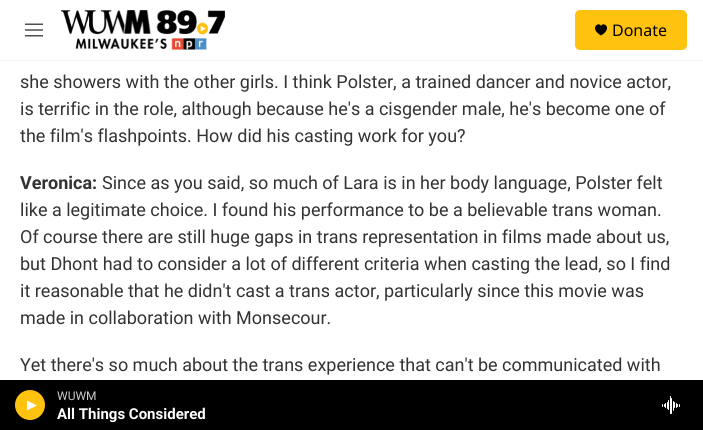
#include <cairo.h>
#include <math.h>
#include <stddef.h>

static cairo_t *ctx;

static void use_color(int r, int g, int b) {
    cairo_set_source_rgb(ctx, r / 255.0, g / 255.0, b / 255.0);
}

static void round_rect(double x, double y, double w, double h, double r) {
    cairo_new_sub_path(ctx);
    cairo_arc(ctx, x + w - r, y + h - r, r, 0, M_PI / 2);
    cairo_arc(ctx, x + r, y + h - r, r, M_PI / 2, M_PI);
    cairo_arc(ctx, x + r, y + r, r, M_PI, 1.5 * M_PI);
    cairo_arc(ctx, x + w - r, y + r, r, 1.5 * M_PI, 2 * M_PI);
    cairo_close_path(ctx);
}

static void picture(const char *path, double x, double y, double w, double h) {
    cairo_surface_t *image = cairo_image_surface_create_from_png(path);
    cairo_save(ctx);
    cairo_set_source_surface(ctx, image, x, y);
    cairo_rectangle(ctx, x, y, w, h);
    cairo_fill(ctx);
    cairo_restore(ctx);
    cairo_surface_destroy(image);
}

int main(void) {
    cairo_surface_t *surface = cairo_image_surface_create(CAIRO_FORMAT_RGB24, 703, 430);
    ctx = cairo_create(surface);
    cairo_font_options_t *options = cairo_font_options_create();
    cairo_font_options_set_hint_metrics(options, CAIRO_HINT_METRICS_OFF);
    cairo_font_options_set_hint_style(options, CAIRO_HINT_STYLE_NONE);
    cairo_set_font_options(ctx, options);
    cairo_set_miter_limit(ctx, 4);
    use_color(255, 255, 255);
    cairo_paint(ctx);
    use_color(245, 245, 245);
    cairo_rectangle(ctx, 0, 60, 703, 1);
    cairo_fill(ctx);
    picture("img1.png", 25, 23, 18, 14);
    picture("img2.png", 61, 10, 164, 40);
    use_color(255, 194, 14);
    round_rect(575, 10, 112, 40, 5);
    cairo_fill(ctx);
    use_color(0, 0, 0);
    cairo_new_path(ctx);
    cairo_move_to(ctx, 601, 26);
    cairo_curve_to(ctx, 599, 21, 588.5, 28, 601, 35.5);
    cairo_curve_to(ctx, 613.5, 28, 603, 21, 601, 26);
    cairo_close_path(ctx);
    cairo_fill(ctx);
    cairo_select_font_face(ctx, "Noto Sans", CAIRO_FONT_SLANT_NORMAL, CAIRO_FONT_WEIGHT_NORMAL);
    cairo_set_font_size(ctx, 16);
    cairo_move_to(ctx, 612, 36);
    cairo_show_text(ctx, "Donate");
    cairo_rectangle(ctx, 0, 380, 703, 50);
    cairo_fill(ctx);
    use_color(255, 194, 14);
    cairo_arc(ctx, 30, 405, 15, 0, 2 * M_PI);
    cairo_fill(ctx);
    use_color(255, 255, 255);
    cairo_new_path(ctx);
    cairo_move_to(ctx, 27, 400.5);
    cairo_line_to(ctx, 37, 405.5);
    cairo_line_to(ctx, 27, 410.5);
    cairo_close_path(ctx);
    cairo_fill(ctx);
    cairo_select_font_face(ctx, "Roboto", CAIRO_FONT_SLANT_NORMAL, CAIRO_FONT_WEIGHT_NORMAL);
    cairo_set_font_size(ctx, 12);
    use_color(204, 204, 204);
    cairo_move_to(ctx, 57, 400);
    cairo_show_text(ctx, "WUWM");
    cairo_select_font_face(ctx, "Roboto", CAIRO_FONT_SLANT_NORMAL, CAIRO_FONT_WEIGHT_BOLD);
    cairo_set_font_size(ctx, 15);
    use_color(255, 255, 255);
    cairo_move_to(ctx, 57, 419);
    cairo_show_text(ctx, "All Things Considered");
    picture("img3.png", 662, 396, 18, 18);
    cairo_select_font_face(ctx, "Roboto", CAIRO_FONT_SLANT_NORMAL, CAIRO_FONT_WEIGHT_NORMAL);
    cairo_set_font_size(ctx, 18);
    use_color(51, 51, 51);
    cairo_move_to(ctx, 20, 88);
    cairo_show_text(ctx, "she showers with the other girls. I think Polster, a trained dancer and novice actor,");
    cairo_move_to(ctx, 20, 115);
    cairo_show_text(ctx, "is terrific in the role, although because he's a cisgender male, he's become one of");
    cairo_move_to(ctx, 20, 142);
    cairo_show_text(ctx, "the film's flashpoints. How did his casting work for you?");
    cairo_select_font_face(ctx, "Roboto", CAIRO_FONT_SLANT_NORMAL, CAIRO_FONT_WEIGHT_BOLD);
    cairo_move_to(ctx, 20, 189);
    cairo_show_text(ctx, "Veronica:");
    cairo_select_font_face(ctx, "Roboto", CAIRO_FONT_SLANT_NORMAL, CAIRO_FONT_WEIGHT_NORMAL);
    cairo_move_to(ctx, 102, 189);
    cairo_show_text(ctx, "Since as you said, so much of Lara is in her body language, Polster felt");
    cairo_move_to(ctx, 20, 216);
    cairo_show_text(ctx, "like a legitimate choice. I found his performance to be a believable trans woman.");
    cairo_move_to(ctx, 20, 243);
    cairo_show_text(ctx, "Of course there are still huge gaps in trans representation in films made about us,");
    cairo_move_to(ctx, 20, 270);
    cairo_show_text(ctx, "but Dhont had to consider a lot of different criteria when casting the lead, so I find");
    cairo_move_to(ctx, 20, 297);
    cairo_show_text(ctx, "it reasonable that he didn't cast a trans actor, particularly since this movie was");
    cairo_move_to(ctx, 20, 324);
    cairo_show_text(ctx, "made in collaboration with Monsecour.");
    cairo_move_to(ctx, 20, 371);
    cairo_show_text(ctx, "Yet there's so much about the trans experience that can't be communicated with");
    cairo_surface_write_to_png(surface, "result.png");
    cairo_font_options_destroy(options);
    cairo_destroy(ctx);
    cairo_surface_destroy(surface);
    return 0;
}
